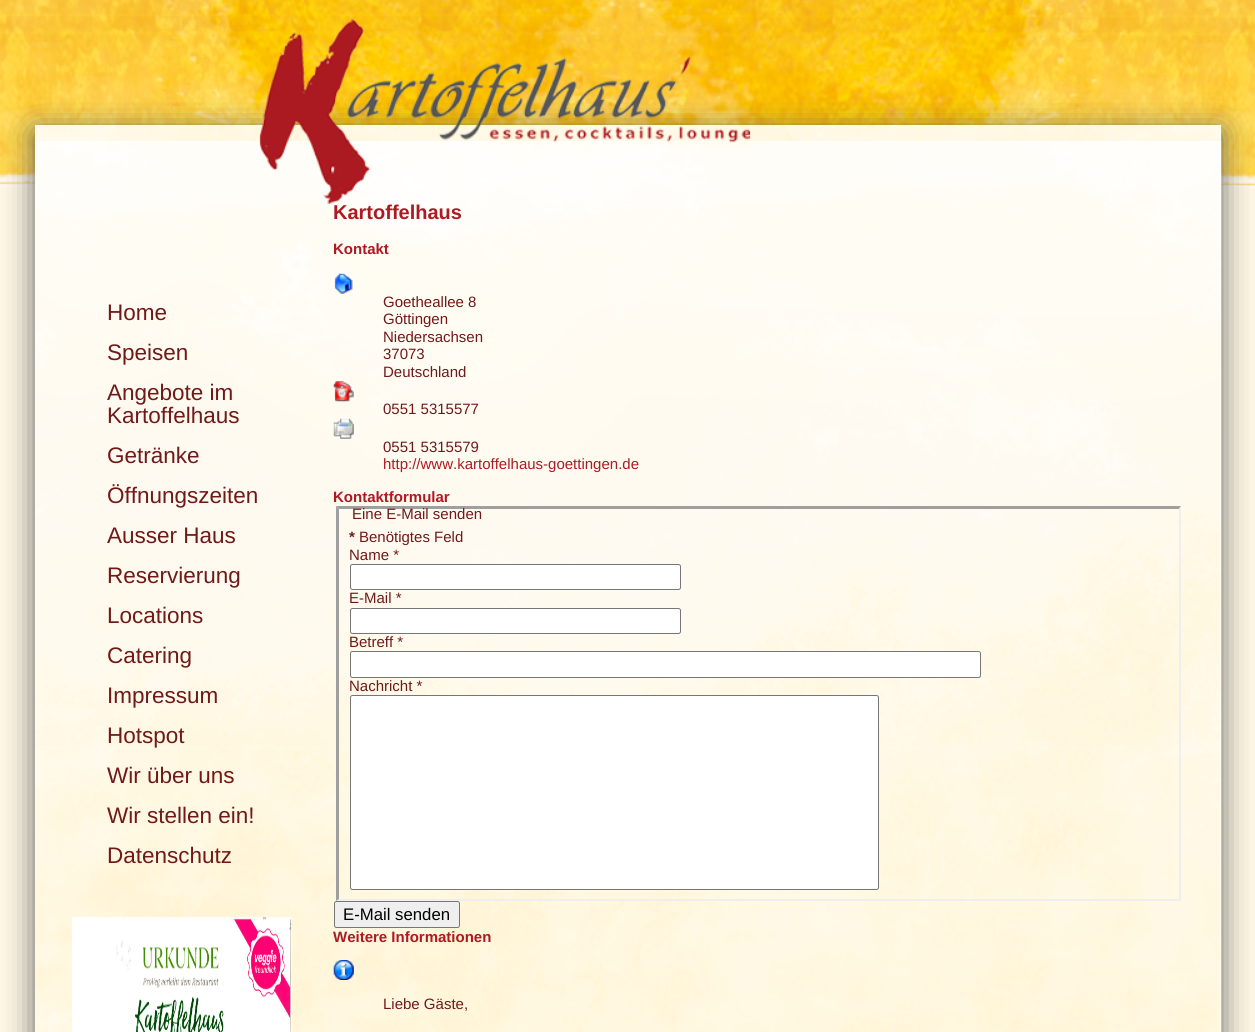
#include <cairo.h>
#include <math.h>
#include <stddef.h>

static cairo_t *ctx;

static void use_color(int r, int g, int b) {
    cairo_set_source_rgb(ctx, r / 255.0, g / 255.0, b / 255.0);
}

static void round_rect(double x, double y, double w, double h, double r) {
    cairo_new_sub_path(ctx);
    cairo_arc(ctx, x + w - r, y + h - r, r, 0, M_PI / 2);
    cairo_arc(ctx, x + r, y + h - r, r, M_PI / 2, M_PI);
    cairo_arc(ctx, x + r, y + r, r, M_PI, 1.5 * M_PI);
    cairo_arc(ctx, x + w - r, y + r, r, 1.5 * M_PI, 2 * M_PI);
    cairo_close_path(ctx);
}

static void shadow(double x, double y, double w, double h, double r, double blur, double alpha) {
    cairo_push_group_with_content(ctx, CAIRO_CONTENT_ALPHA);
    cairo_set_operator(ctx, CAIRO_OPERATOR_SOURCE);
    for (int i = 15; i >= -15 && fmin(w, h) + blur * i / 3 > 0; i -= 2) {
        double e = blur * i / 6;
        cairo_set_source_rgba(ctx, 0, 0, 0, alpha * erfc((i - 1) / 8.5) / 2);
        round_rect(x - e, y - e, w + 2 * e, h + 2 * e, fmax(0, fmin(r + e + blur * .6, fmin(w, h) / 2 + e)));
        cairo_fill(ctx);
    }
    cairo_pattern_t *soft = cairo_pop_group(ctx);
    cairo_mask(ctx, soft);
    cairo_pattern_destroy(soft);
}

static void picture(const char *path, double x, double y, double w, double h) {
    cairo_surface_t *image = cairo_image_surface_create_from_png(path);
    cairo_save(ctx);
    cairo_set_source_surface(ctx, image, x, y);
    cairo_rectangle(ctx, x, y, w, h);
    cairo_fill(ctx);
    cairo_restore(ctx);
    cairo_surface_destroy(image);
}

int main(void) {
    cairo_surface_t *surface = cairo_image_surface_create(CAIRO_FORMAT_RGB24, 1255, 1032);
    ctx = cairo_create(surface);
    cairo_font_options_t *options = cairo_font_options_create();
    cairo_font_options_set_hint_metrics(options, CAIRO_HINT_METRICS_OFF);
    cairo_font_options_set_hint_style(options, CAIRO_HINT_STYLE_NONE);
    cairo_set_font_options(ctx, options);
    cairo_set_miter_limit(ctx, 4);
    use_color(255, 248, 230);
    cairo_paint(ctx);
    picture("img1.png", 0, 0, 1255, 189);
    use_color(94, 94, 94);
    shadow(35, 131, 1186, 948, 0, 15.5, 1);
    use_color(255, 255, 255);
    cairo_rectangle(ctx, 35, 125, 1186, 16);
    cairo_fill(ctx);
    picture("img2.png", 35, 125, 1187, 907);
    cairo_rectangle(ctx, 35, 141, 1186, 891);
    cairo_fill(ctx);
    picture("img4.png", 35, 141, 1187, 607);
    picture("img3.png", 259, 18, 492, 186);
    picture("img5.png", 35, 747, 1187, 285);
    cairo_select_font_face(ctx, "Liberation Sans", CAIRO_FONT_SLANT_NORMAL, CAIRO_FONT_WEIGHT_NORMAL);
    cairo_set_font_size(ctx, 22.5);
    use_color(112, 25, 25);
    cairo_move_to(ctx, 107, 320);
    cairo_show_text(ctx, "Home");
    cairo_move_to(ctx, 107, 360);
    cairo_show_text(ctx, "Speisen");
    cairo_move_to(ctx, 107, 400);
    cairo_show_text(ctx, "Angebote im");
    cairo_move_to(ctx, 107, 423);
    cairo_show_text(ctx, "Kartoffelhaus");
    cairo_move_to(ctx, 107, 463);
    cairo_show_text(ctx, "Getränke");
    cairo_move_to(ctx, 107, 503);
    cairo_show_text(ctx, "Öffnungszeiten");
    cairo_move_to(ctx, 107, 543);
    cairo_show_text(ctx, "Ausser Haus");
    cairo_move_to(ctx, 107, 583);
    cairo_show_text(ctx, "Reservierung");
    cairo_move_to(ctx, 107, 623);
    cairo_show_text(ctx, "Locations");
    cairo_move_to(ctx, 107, 663);
    cairo_show_text(ctx, "Catering");
    cairo_move_to(ctx, 107, 703);
    cairo_show_text(ctx, "Impressum");
    cairo_move_to(ctx, 107, 743);
    cairo_show_text(ctx, "Hotspot");
    cairo_move_to(ctx, 107, 783);
    cairo_show_text(ctx, "Wir über uns");
    cairo_move_to(ctx, 107, 823);
    cairo_show_text(ctx, "Wir stellen ein!");
    cairo_move_to(ctx, 107, 863);
    cairo_show_text(ctx, "Datenschutz");
    picture("img6.png", 72, 917, 220, 115);
    picture("img7.png", 72, 917, 220, 115);
    picture("img8.png", 72, 917, 220, 115);
    cairo_select_font_face(ctx, "Liberation Sans", CAIRO_FONT_SLANT_NORMAL, CAIRO_FONT_WEIGHT_BOLD);
    cairo_set_font_size(ctx, 20);
    use_color(172, 26, 34);
    cairo_move_to(ctx, 333, 219);
    cairo_show_text(ctx, "Kartoffelhaus");
    cairo_set_font_size(ctx, 15);
    cairo_move_to(ctx, 333, 254);
    cairo_show_text(ctx, "Kontakt");
    picture("img9.png", 334, 273, 19, 21);
    cairo_select_font_face(ctx, "Liberation Sans", CAIRO_FONT_SLANT_NORMAL, CAIRO_FONT_WEIGHT_NORMAL);
    use_color(112, 25, 25);
    cairo_move_to(ctx, 383, 307);
    cairo_show_text(ctx, "Goetheallee 8");
    cairo_move_to(ctx, 383, 324);
    cairo_show_text(ctx, "Göttingen");
    cairo_move_to(ctx, 383, 342);
    cairo_show_text(ctx, "Niedersachsen");
    cairo_move_to(ctx, 383, 359);
    cairo_show_text(ctx, "37073");
    cairo_move_to(ctx, 383, 377);
    cairo_show_text(ctx, "Deutschland");
    picture("img10.png", 333, 381, 21, 21);
    cairo_move_to(ctx, 383, 414);
    cairo_show_text(ctx, "0551 5315577");
    picture("img11.png", 333, 418, 21, 21);
    cairo_move_to(ctx, 383, 452);
    cairo_show_text(ctx, "0551 5315579");
    use_color(172, 26, 34);
    cairo_move_to(ctx, 383, 469);
    cairo_show_text(ctx, "http://www.kartoffelhaus-goettingen.de");
    cairo_select_font_face(ctx, "Liberation Sans", CAIRO_FONT_SLANT_NORMAL, CAIRO_FONT_WEIGHT_BOLD);
    cairo_move_to(ctx, 333, 502);
    cairo_show_text(ctx, "Kontaktformular");
    use_color(159, 159, 159);
    cairo_new_path(ctx);
    cairo_move_to(ctx, 336, 506);
    cairo_line_to(ctx, 1181, 506);
    cairo_line_to(ctx, 1179, 509);
    cairo_line_to(ctx, 339, 509);
    cairo_close_path(ctx);
    cairo_fill(ctx);
    use_color(239, 239, 239);
    cairo_new_path(ctx);
    cairo_move_to(ctx, 1181, 506);
    cairo_line_to(ctx, 1181, 901);
    cairo_line_to(ctx, 1179, 899);
    cairo_line_to(ctx, 1179, 509);
    cairo_close_path(ctx);
    cairo_fill(ctx);
    cairo_new_path(ctx);
    cairo_move_to(ctx, 1181, 901);
    cairo_line_to(ctx, 336, 901);
    cairo_line_to(ctx, 339, 899);
    cairo_line_to(ctx, 1179, 899);
    cairo_close_path(ctx);
    cairo_fill(ctx);
    use_color(159, 159, 159);
    cairo_new_path(ctx);
    cairo_move_to(ctx, 336, 901);
    cairo_line_to(ctx, 336, 506);
    cairo_line_to(ctx, 339, 509);
    cairo_line_to(ctx, 339, 899);
    cairo_close_path(ctx);
    cairo_fill(ctx);
    cairo_select_font_face(ctx, "Liberation Sans", CAIRO_FONT_SLANT_NORMAL, CAIRO_FONT_WEIGHT_NORMAL);
    use_color(112, 25, 25);
    cairo_move_to(ctx, 352, 519);
    cairo_show_text(ctx, "Eine E-Mail senden");
    cairo_select_font_face(ctx, "Liberation Sans", CAIRO_FONT_SLANT_NORMAL, CAIRO_FONT_WEIGHT_BOLD);
    cairo_move_to(ctx, 349, 542);
    cairo_show_text(ctx, "*");
    cairo_select_font_face(ctx, "Liberation Sans", CAIRO_FONT_SLANT_NORMAL, CAIRO_FONT_WEIGHT_NORMAL);
    cairo_move_to(ctx, 359, 542);
    cairo_show_text(ctx, "Benötigtes Feld");
    cairo_move_to(ctx, 349, 560);
    cairo_show_text(ctx, "Name *");
    use_color(255, 255, 255);
    round_rect(350.5, 564.5, 330, 25, 2);
    cairo_fill_preserve(ctx);
    use_color(118, 118, 118);
    cairo_set_line_width(ctx, 1);
    cairo_stroke(ctx);
    use_color(112, 25, 25);
    cairo_move_to(ctx, 349, 603);
    cairo_show_text(ctx, "E-Mail *");
    use_color(255, 255, 255);
    round_rect(350.5, 608.5, 330, 25, 2);
    cairo_fill_preserve(ctx);
    use_color(118, 118, 118);
    cairo_stroke(ctx);
    use_color(112, 25, 25);
    cairo_move_to(ctx, 349, 647);
    cairo_show_text(ctx, "Betreff *");
    use_color(255, 255, 255);
    round_rect(350.5, 651.5, 630, 26, 2);
    cairo_fill_preserve(ctx);
    use_color(118, 118, 118);
    cairo_stroke(ctx);
    use_color(112, 25, 25);
    cairo_move_to(ctx, 349, 691);
    cairo_show_text(ctx, "Nachricht *");
    use_color(255, 255, 255);
    round_rect(350.5, 695.5, 528, 194, 2);
    cairo_fill_preserve(ctx);
    use_color(118, 118, 118);
    cairo_stroke(ctx);
    use_color(239, 239, 239);
    round_rect(334.5, 901.5, 125, 26, 2);
    cairo_fill_preserve(ctx);
    use_color(118, 118, 118);
    cairo_stroke(ctx);
    cairo_set_font_size(ctx, 16.75);
    use_color(0, 0, 0);
    cairo_move_to(ctx, 343, 920);
    cairo_show_text(ctx, "E-Mail senden");
    cairo_select_font_face(ctx, "Liberation Sans", CAIRO_FONT_SLANT_NORMAL, CAIRO_FONT_WEIGHT_BOLD);
    cairo_set_font_size(ctx, 15);
    use_color(172, 26, 34);
    cairo_move_to(ctx, 333, 942);
    cairo_show_text(ctx, "Weitere Informationen");
    picture("img12.png", 333, 960, 21, 20);
    cairo_select_font_face(ctx, "Liberation Sans", CAIRO_FONT_SLANT_NORMAL, CAIRO_FONT_WEIGHT_NORMAL);
    use_color(112, 25, 25);
    cairo_move_to(ctx, 383, 1009);
    cairo_show_text(ctx, "Liebe Gäste,");
    cairo_surface_write_to_png(surface, "result.png");
    cairo_font_options_destroy(options);
    cairo_destroy(ctx);
    cairo_surface_destroy(surface);
    return 0;
}
